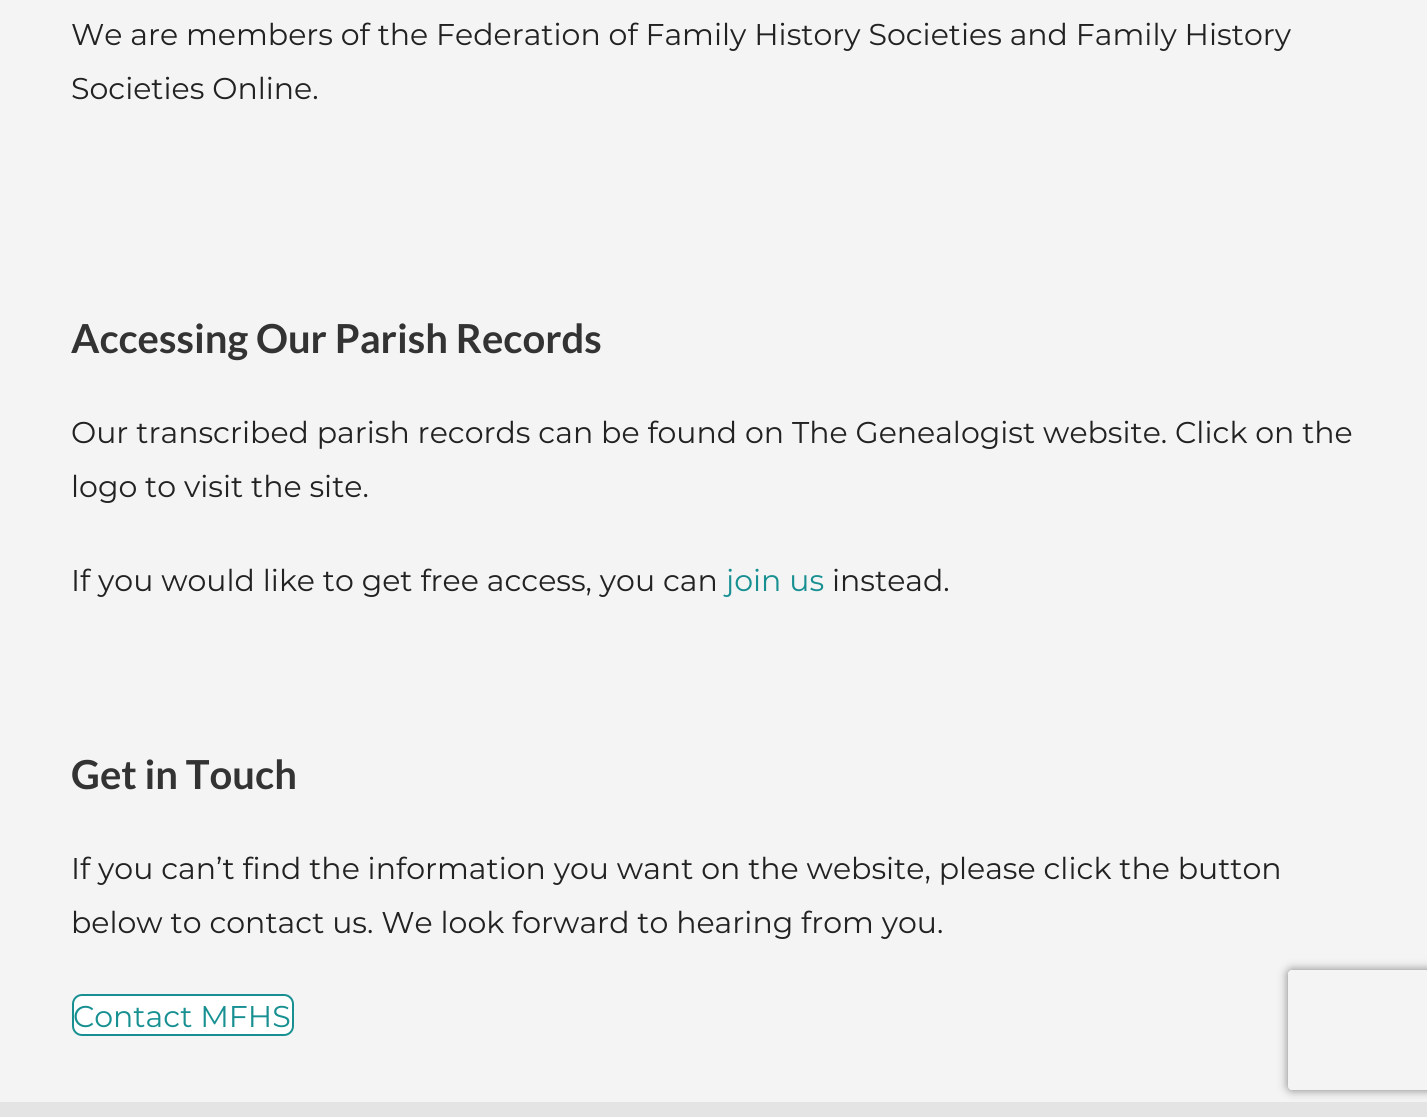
#include <cairo.h>
#include <math.h>
#include <stddef.h>

static cairo_t *ctx;

static void use_color(int r, int g, int b) {
    cairo_set_source_rgb(ctx, r / 255.0, g / 255.0, b / 255.0);
}

static void round_rect(double x, double y, double w, double h, double r) {
    cairo_new_sub_path(ctx);
    cairo_arc(ctx, x + w - r, y + h - r, r, 0, M_PI / 2);
    cairo_arc(ctx, x + r, y + h - r, r, M_PI / 2, M_PI);
    cairo_arc(ctx, x + r, y + r, r, M_PI, 1.5 * M_PI);
    cairo_arc(ctx, x + w - r, y + r, r, 1.5 * M_PI, 2 * M_PI);
    cairo_close_path(ctx);
}

static void shadow(double x, double y, double w, double h, double r, double blur, double alpha) {
    cairo_push_group_with_content(ctx, CAIRO_CONTENT_ALPHA);
    cairo_set_operator(ctx, CAIRO_OPERATOR_SOURCE);
    for (int i = 15; i >= -15 && fmin(w, h) + blur * i / 3 > 0; i -= 2) {
        double e = blur * i / 6;
        cairo_set_source_rgba(ctx, 0, 0, 0, alpha * erfc((i - 1) / 8.5) / 2);
        round_rect(x - e, y - e, w + 2 * e, h + 2 * e, fmax(0, fmin(r + e + blur * .6, fmin(w, h) / 2 + e)));
        cairo_fill(ctx);
    }
    cairo_pattern_t *soft = cairo_pop_group(ctx);
    cairo_mask(ctx, soft);
    cairo_pattern_destroy(soft);
}

int main(void) {
    cairo_surface_t *surface = cairo_image_surface_create(CAIRO_FORMAT_RGB24, 1427, 1117);
    ctx = cairo_create(surface);
    cairo_font_options_t *options = cairo_font_options_create();
    cairo_font_options_set_hint_metrics(options, CAIRO_HINT_METRICS_OFF);
    cairo_font_options_set_hint_style(options, CAIRO_HINT_STYLE_NONE);
    cairo_set_font_options(ctx, options);
    cairo_set_miter_limit(ctx, 4);
    use_color(244, 244, 244);
    cairo_paint(ctx);
    cairo_select_font_face(ctx, "Montserrat", CAIRO_FONT_SLANT_NORMAL, CAIRO_FONT_WEIGHT_NORMAL);
    cairo_set_font_size(ctx, 30);
    use_color(34, 34, 34);
    cairo_move_to(ctx, 71, 45);
    cairo_show_text(ctx, "We are members of the Federation of Family History Societies and Family History");
    cairo_move_to(ctx, 71, 99);
    cairo_show_text(ctx, "Societies Online.");
    cairo_select_font_face(ctx, "Lato", CAIRO_FONT_SLANT_NORMAL, CAIRO_FONT_WEIGHT_BOLD);
    cairo_set_font_size(ctx, 40);
    use_color(51, 51, 51);
    cairo_move_to(ctx, 71, 353);
    cairo_show_text(ctx, "Accessing Our Parish Records");
    cairo_select_font_face(ctx, "Montserrat", CAIRO_FONT_SLANT_NORMAL, CAIRO_FONT_WEIGHT_NORMAL);
    cairo_set_font_size(ctx, 30);
    use_color(34, 34, 34);
    cairo_move_to(ctx, 71, 443);
    cairo_show_text(ctx, "Our transcribed parish records can be found on The Genealogist website. Click on the");
    cairo_move_to(ctx, 71, 497);
    cairo_show_text(ctx, "logo to visit the site.");
    cairo_move_to(ctx, 71, 591);
    cairo_show_text(ctx, "If you would like to get free access, you can");
    use_color(24, 144, 146);
    cairo_move_to(ctx, 726, 591);
    cairo_show_text(ctx, "join us");
    use_color(34, 34, 34);
    cairo_move_to(ctx, 832, 591);
    cairo_show_text(ctx, "instead.");
    cairo_select_font_face(ctx, "Lato", CAIRO_FONT_SLANT_NORMAL, CAIRO_FONT_WEIGHT_BOLD);
    cairo_set_font_size(ctx, 40);
    use_color(51, 51, 51);
    cairo_move_to(ctx, 71, 789);
    cairo_show_text(ctx, "Get in Touch");
    cairo_select_font_face(ctx, "Montserrat", CAIRO_FONT_SLANT_NORMAL, CAIRO_FONT_WEIGHT_NORMAL);
    cairo_set_font_size(ctx, 30);
    use_color(34, 34, 34);
    cairo_move_to(ctx, 71, 879);
    cairo_show_text(ctx, "If you can’t find the information you want on the website, please click the button");
    cairo_move_to(ctx, 71, 933);
    cairo_show_text(ctx, "below to contact us. We look forward to hearing from you.");
    use_color(255, 255, 255);
    round_rect(73, 995, 220, 40, 9);
    cairo_fill_preserve(ctx);
    use_color(24, 144, 146);
    cairo_stroke(ctx);
    cairo_move_to(ctx, 73, 1027);
    cairo_show_text(ctx, "Contact MFHS");
    use_color(228, 228, 228);
    cairo_rectangle(ctx, 0, 1102, 1427, 15);
    cairo_fill(ctx);
    cairo_save(ctx);
    cairo_set_fill_rule(ctx, CAIRO_FILL_RULE_EVEN_ODD);
    cairo_new_path(ctx);
    cairo_move_to(ctx, 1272, 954);
    cairo_line_to(ctx, 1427, 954);
    cairo_line_to(ctx, 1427, 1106);
    cairo_line_to(ctx, 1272, 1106);
    cairo_close_path(ctx);
    cairo_move_to(ctx, 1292, 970);
    cairo_line_to(ctx, 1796, 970);
    cairo_curve_to(ctx, 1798, 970, 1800, 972, 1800, 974);
    cairo_line_to(ctx, 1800, 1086);
    cairo_curve_to(ctx, 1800, 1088, 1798, 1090, 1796, 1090);
    cairo_line_to(ctx, 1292, 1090);
    cairo_curve_to(ctx, 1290, 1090, 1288, 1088, 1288, 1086);
    cairo_line_to(ctx, 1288, 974);
    cairo_curve_to(ctx, 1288, 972, 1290, 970, 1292, 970);
    cairo_close_path(ctx);
    cairo_clip(ctx);
    use_color(128, 128, 128);
    shadow(1288, 970, 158, 120, 4, 5, 1);
    cairo_restore(ctx);
    cairo_surface_write_to_png(surface, "result.png");
    cairo_font_options_destroy(options);
    cairo_destroy(ctx);
    cairo_surface_destroy(surface);
    return 0;
}
